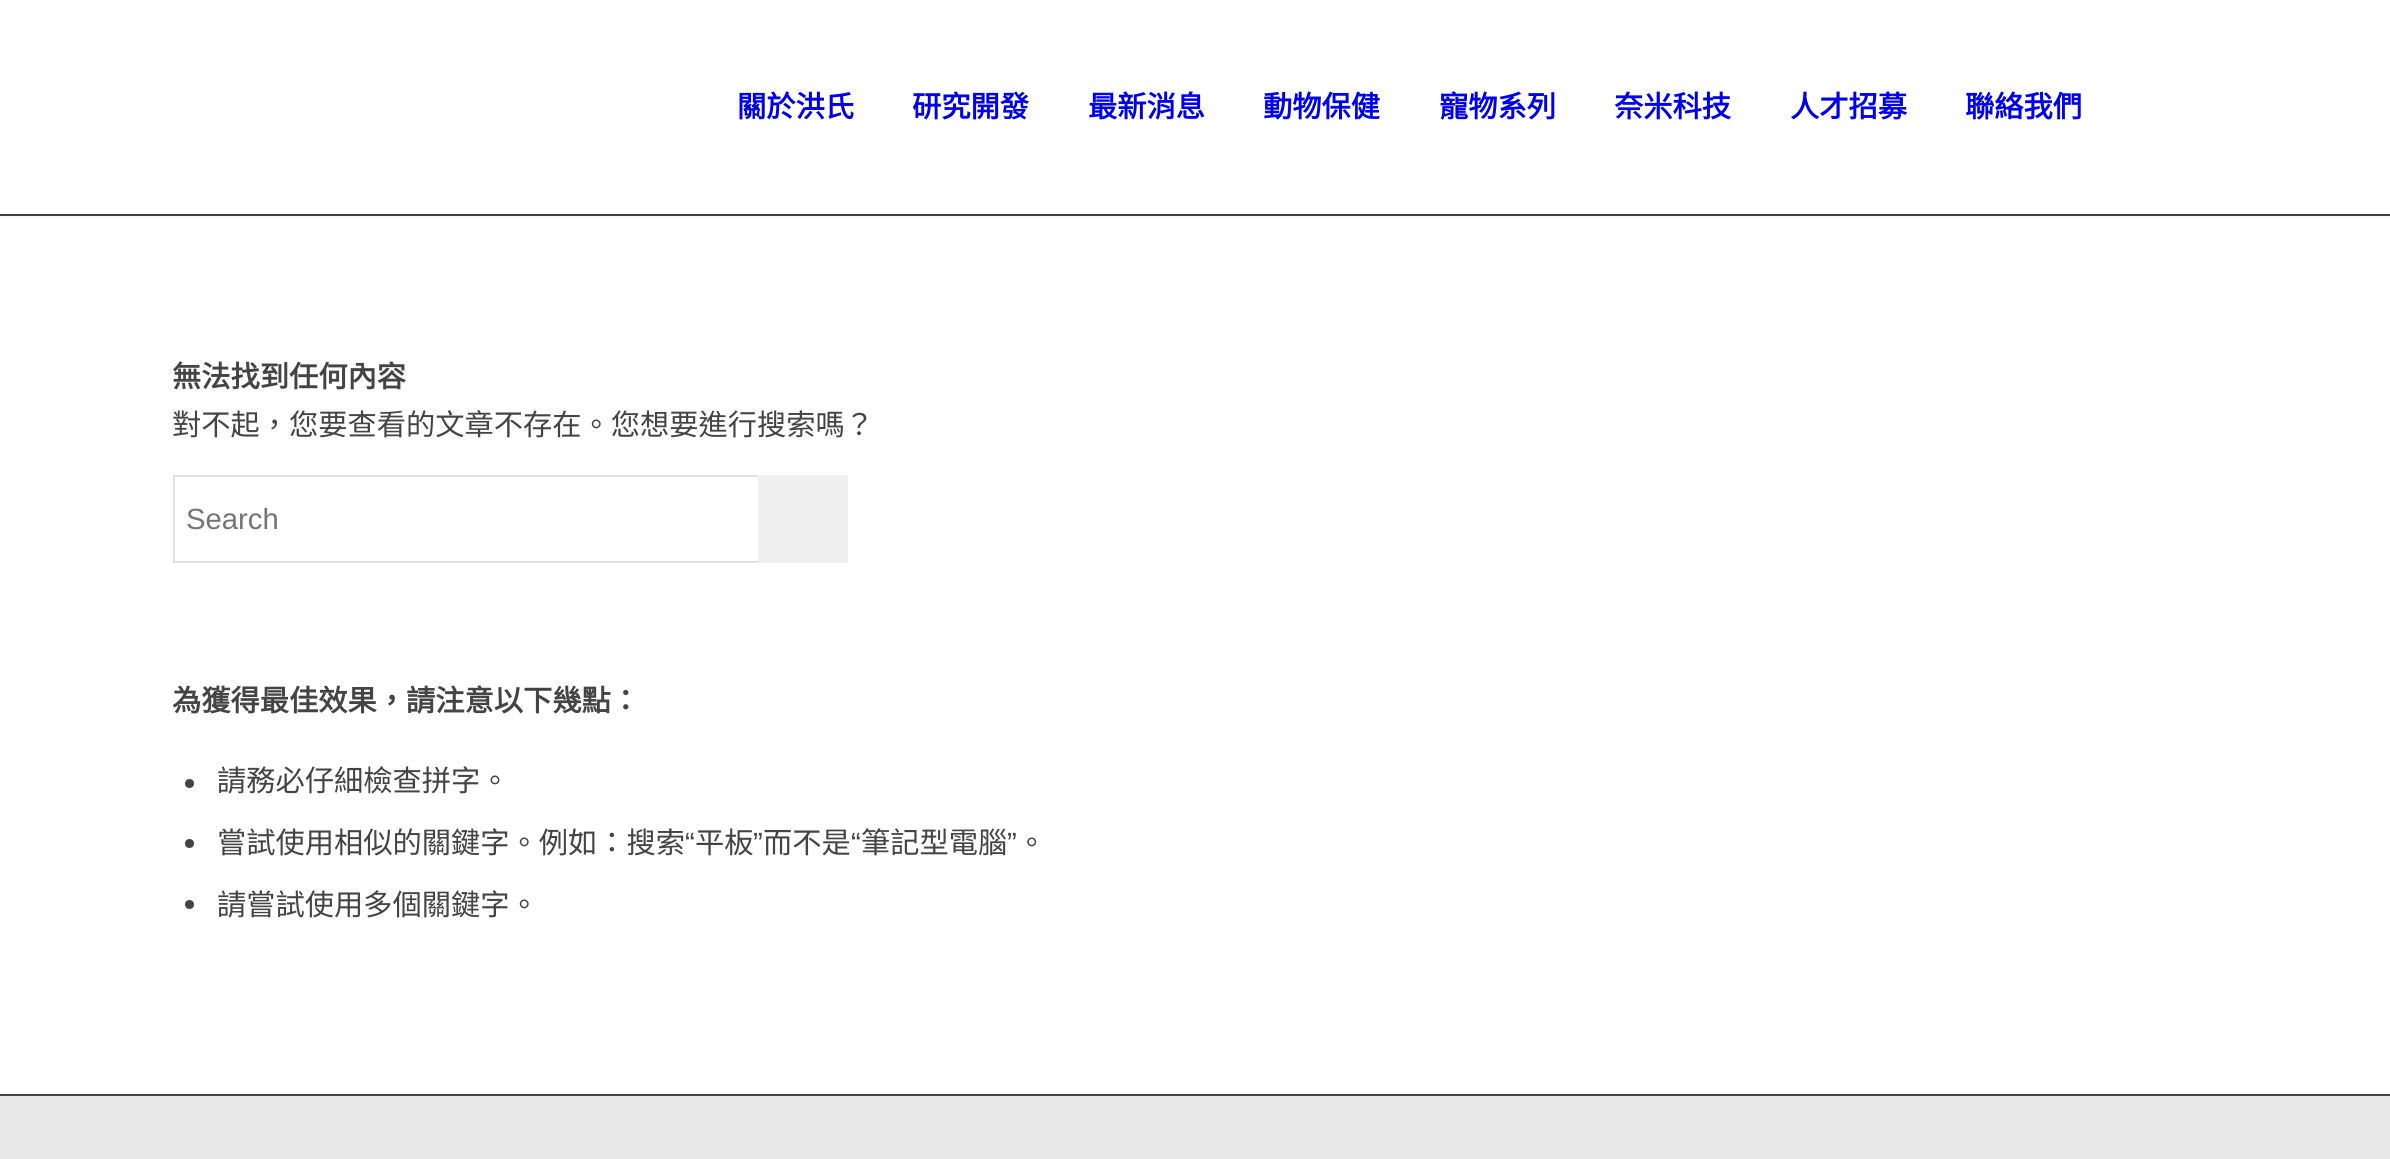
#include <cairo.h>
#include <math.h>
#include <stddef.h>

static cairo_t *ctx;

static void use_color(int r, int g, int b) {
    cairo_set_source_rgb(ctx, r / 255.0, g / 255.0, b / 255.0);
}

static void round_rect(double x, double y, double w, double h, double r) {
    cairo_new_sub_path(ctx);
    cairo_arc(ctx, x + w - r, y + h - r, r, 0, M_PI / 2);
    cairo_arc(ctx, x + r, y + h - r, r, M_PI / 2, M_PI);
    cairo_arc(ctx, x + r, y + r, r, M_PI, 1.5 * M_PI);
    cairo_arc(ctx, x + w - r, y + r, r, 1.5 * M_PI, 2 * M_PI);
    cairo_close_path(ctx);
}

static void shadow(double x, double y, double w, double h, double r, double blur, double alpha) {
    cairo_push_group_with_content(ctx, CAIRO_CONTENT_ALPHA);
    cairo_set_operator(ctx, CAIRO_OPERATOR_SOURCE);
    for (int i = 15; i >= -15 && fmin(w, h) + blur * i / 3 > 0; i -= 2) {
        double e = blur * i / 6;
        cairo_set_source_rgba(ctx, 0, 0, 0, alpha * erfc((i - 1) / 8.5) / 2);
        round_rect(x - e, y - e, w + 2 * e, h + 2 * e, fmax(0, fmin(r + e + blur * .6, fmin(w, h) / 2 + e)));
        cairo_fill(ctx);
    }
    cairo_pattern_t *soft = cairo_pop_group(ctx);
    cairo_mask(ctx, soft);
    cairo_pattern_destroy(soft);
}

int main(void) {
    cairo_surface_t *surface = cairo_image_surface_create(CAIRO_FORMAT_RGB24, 2390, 1159);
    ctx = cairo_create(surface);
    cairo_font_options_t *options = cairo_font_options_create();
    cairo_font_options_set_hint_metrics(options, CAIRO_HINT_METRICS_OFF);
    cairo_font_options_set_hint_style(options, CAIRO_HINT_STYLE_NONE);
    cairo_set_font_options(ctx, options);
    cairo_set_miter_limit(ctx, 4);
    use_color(255, 255, 255);
    cairo_paint(ctx);
    use_color(68, 68, 68);
    cairo_rectangle(ctx, 0, 214, 2390, 2);
    cairo_fill(ctx);
    cairo_save(ctx);
    cairo_set_fill_rule(ctx, CAIRO_FILL_RULE_EVEN_ODD);
    cairo_new_path(ctx);
    cairo_move_to(ctx, 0, 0);
    cairo_line_to(ctx, 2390, 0);
    cairo_line_to(ctx, 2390, 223);
    cairo_line_to(ctx, 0, 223);
    cairo_close_path(ctx);
    cairo_move_to(ctx, 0, 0);
    cairo_line_to(ctx, 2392, 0);
    cairo_line_to(ctx, 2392, 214);
    cairo_line_to(ctx, 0, 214);
    cairo_close_path(ctx);
    cairo_clip(ctx);
    use_color(0, 0, 0);
    shadow(-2, -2, 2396, 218, 0, 2, 0.1);
    cairo_restore(ctx);
    cairo_select_font_face(ctx, "Noto Sans CJK TC", CAIRO_FONT_SLANT_NORMAL, CAIRO_FONT_WEIGHT_BOLD);
    cairo_set_font_size(ctx, 29.25);
    use_color(0, 0, 238);
    cairo_move_to(ctx, 737, 117);
    cairo_show_text(ctx, "關於洪氏");
    cairo_move_to(ctx, 912, 117);
    cairo_show_text(ctx, "研究開發");
    cairo_move_to(ctx, 1088, 117);
    cairo_show_text(ctx, "最新消息");
    cairo_move_to(ctx, 1263, 117);
    cairo_show_text(ctx, "動物保健");
    cairo_move_to(ctx, 1439, 117);
    cairo_show_text(ctx, "寵物系列");
    cairo_move_to(ctx, 1614, 117);
    cairo_show_text(ctx, "奈米科技");
    cairo_move_to(ctx, 1790, 117);
    cairo_show_text(ctx, "人才招募");
    cairo_move_to(ctx, 1965, 117);
    cairo_show_text(ctx, "聯絡我們");
    use_color(68, 68, 68);
    cairo_move_to(ctx, 172, 387);
    cairo_show_text(ctx, "無法找到任何內容");
    cairo_select_font_face(ctx, "Noto Sans CJK TC", CAIRO_FONT_SLANT_NORMAL, CAIRO_FONT_WEIGHT_NORMAL);
    cairo_move_to(ctx, 172, 435);
    cairo_show_text(ctx, "對不起，您要查看的文章不存在。您想要進行搜索嗎？");
    cairo_rectangle(ctx, 174, 476, 673, 86);
    use_color(225, 225, 225);
    cairo_stroke(ctx);
    cairo_select_font_face(ctx, "Liberation Sans", CAIRO_FONT_SLANT_NORMAL, CAIRO_FONT_WEIGHT_NORMAL);
    use_color(117, 117, 117);
    cairo_move_to(ctx, 186, 529);
    cairo_show_text(ctx, "Search");
    use_color(239, 239, 239);
    cairo_rectangle(ctx, 758, 475, 90, 88);
    cairo_fill(ctx);
    cairo_select_font_face(ctx, "Noto Sans CJK TC", CAIRO_FONT_SLANT_NORMAL, CAIRO_FONT_WEIGHT_BOLD);
    use_color(68, 68, 68);
    cairo_move_to(ctx, 172, 711);
    cairo_show_text(ctx, "為獲得最佳效果，請注意以下幾點：");
    cairo_new_path(ctx);
    cairo_arc(ctx, 189.5, 783.5, 4.5, 0, 2 * M_PI);
    cairo_fill(ctx);
    cairo_select_font_face(ctx, "Noto Sans CJK TC", CAIRO_FONT_SLANT_NORMAL, CAIRO_FONT_WEIGHT_NORMAL);
    cairo_move_to(ctx, 217, 791);
    cairo_show_text(ctx, "請務必仔細檢查拼字。");
    cairo_move_to(ctx, 217, 853);
    cairo_show_text(ctx, "嘗試使用相似的關鍵字。例如：搜索");
    cairo_select_font_face(ctx, "Liberation Sans", CAIRO_FONT_SLANT_NORMAL, CAIRO_FONT_WEIGHT_NORMAL);
    cairo_move_to(ctx, 685, 853);
    cairo_show_text(ctx, "“");
    cairo_select_font_face(ctx, "Noto Sans CJK TC", CAIRO_FONT_SLANT_NORMAL, CAIRO_FONT_WEIGHT_NORMAL);
    cairo_move_to(ctx, 695, 853);
    cairo_show_text(ctx, "平板");
    cairo_select_font_face(ctx, "Liberation Sans", CAIRO_FONT_SLANT_NORMAL, CAIRO_FONT_WEIGHT_NORMAL);
    cairo_move_to(ctx, 753, 853);
    cairo_show_text(ctx, "”");
    cairo_select_font_face(ctx, "Noto Sans CJK TC", CAIRO_FONT_SLANT_NORMAL, CAIRO_FONT_WEIGHT_NORMAL);
    cairo_move_to(ctx, 763, 853);
    cairo_show_text(ctx, "而不是");
    cairo_select_font_face(ctx, "Liberation Sans", CAIRO_FONT_SLANT_NORMAL, CAIRO_FONT_WEIGHT_NORMAL);
    cairo_move_to(ctx, 851, 853);
    cairo_show_text(ctx, "“");
    cairo_select_font_face(ctx, "Noto Sans CJK TC", CAIRO_FONT_SLANT_NORMAL, CAIRO_FONT_WEIGHT_NORMAL);
    cairo_move_to(ctx, 861, 853);
    cairo_show_text(ctx, "筆記型電腦");
    cairo_select_font_face(ctx, "Liberation Sans", CAIRO_FONT_SLANT_NORMAL, CAIRO_FONT_WEIGHT_NORMAL);
    cairo_move_to(ctx, 1007, 853);
    cairo_show_text(ctx, "”");
    cairo_new_path(ctx);
    cairo_arc(ctx, 189.5, 843.5, 4.5, 0, 2 * M_PI);
    cairo_fill(ctx);
    cairo_select_font_face(ctx, "Noto Sans CJK TC", CAIRO_FONT_SLANT_NORMAL, CAIRO_FONT_WEIGHT_NORMAL);
    cairo_move_to(ctx, 1017, 853);
    cairo_show_text(ctx, "。");
    cairo_new_path(ctx);
    cairo_arc(ctx, 189.5, 904.5, 4.5, 0, 2 * M_PI);
    cairo_fill(ctx);
    cairo_move_to(ctx, 217, 915);
    cairo_show_text(ctx, "請嘗試使用多個關鍵字。");
    use_color(232, 232, 232);
    cairo_rectangle(ctx, 0, 1096, 2390, 63);
    cairo_fill(ctx);
    use_color(68, 68, 68);
    cairo_rectangle(ctx, 0, 1094, 2390, 2);
    cairo_fill(ctx);
    cairo_surface_write_to_png(surface, "result.png");
    cairo_font_options_destroy(options);
    cairo_destroy(ctx);
    cairo_surface_destroy(surface);
    return 0;
}
